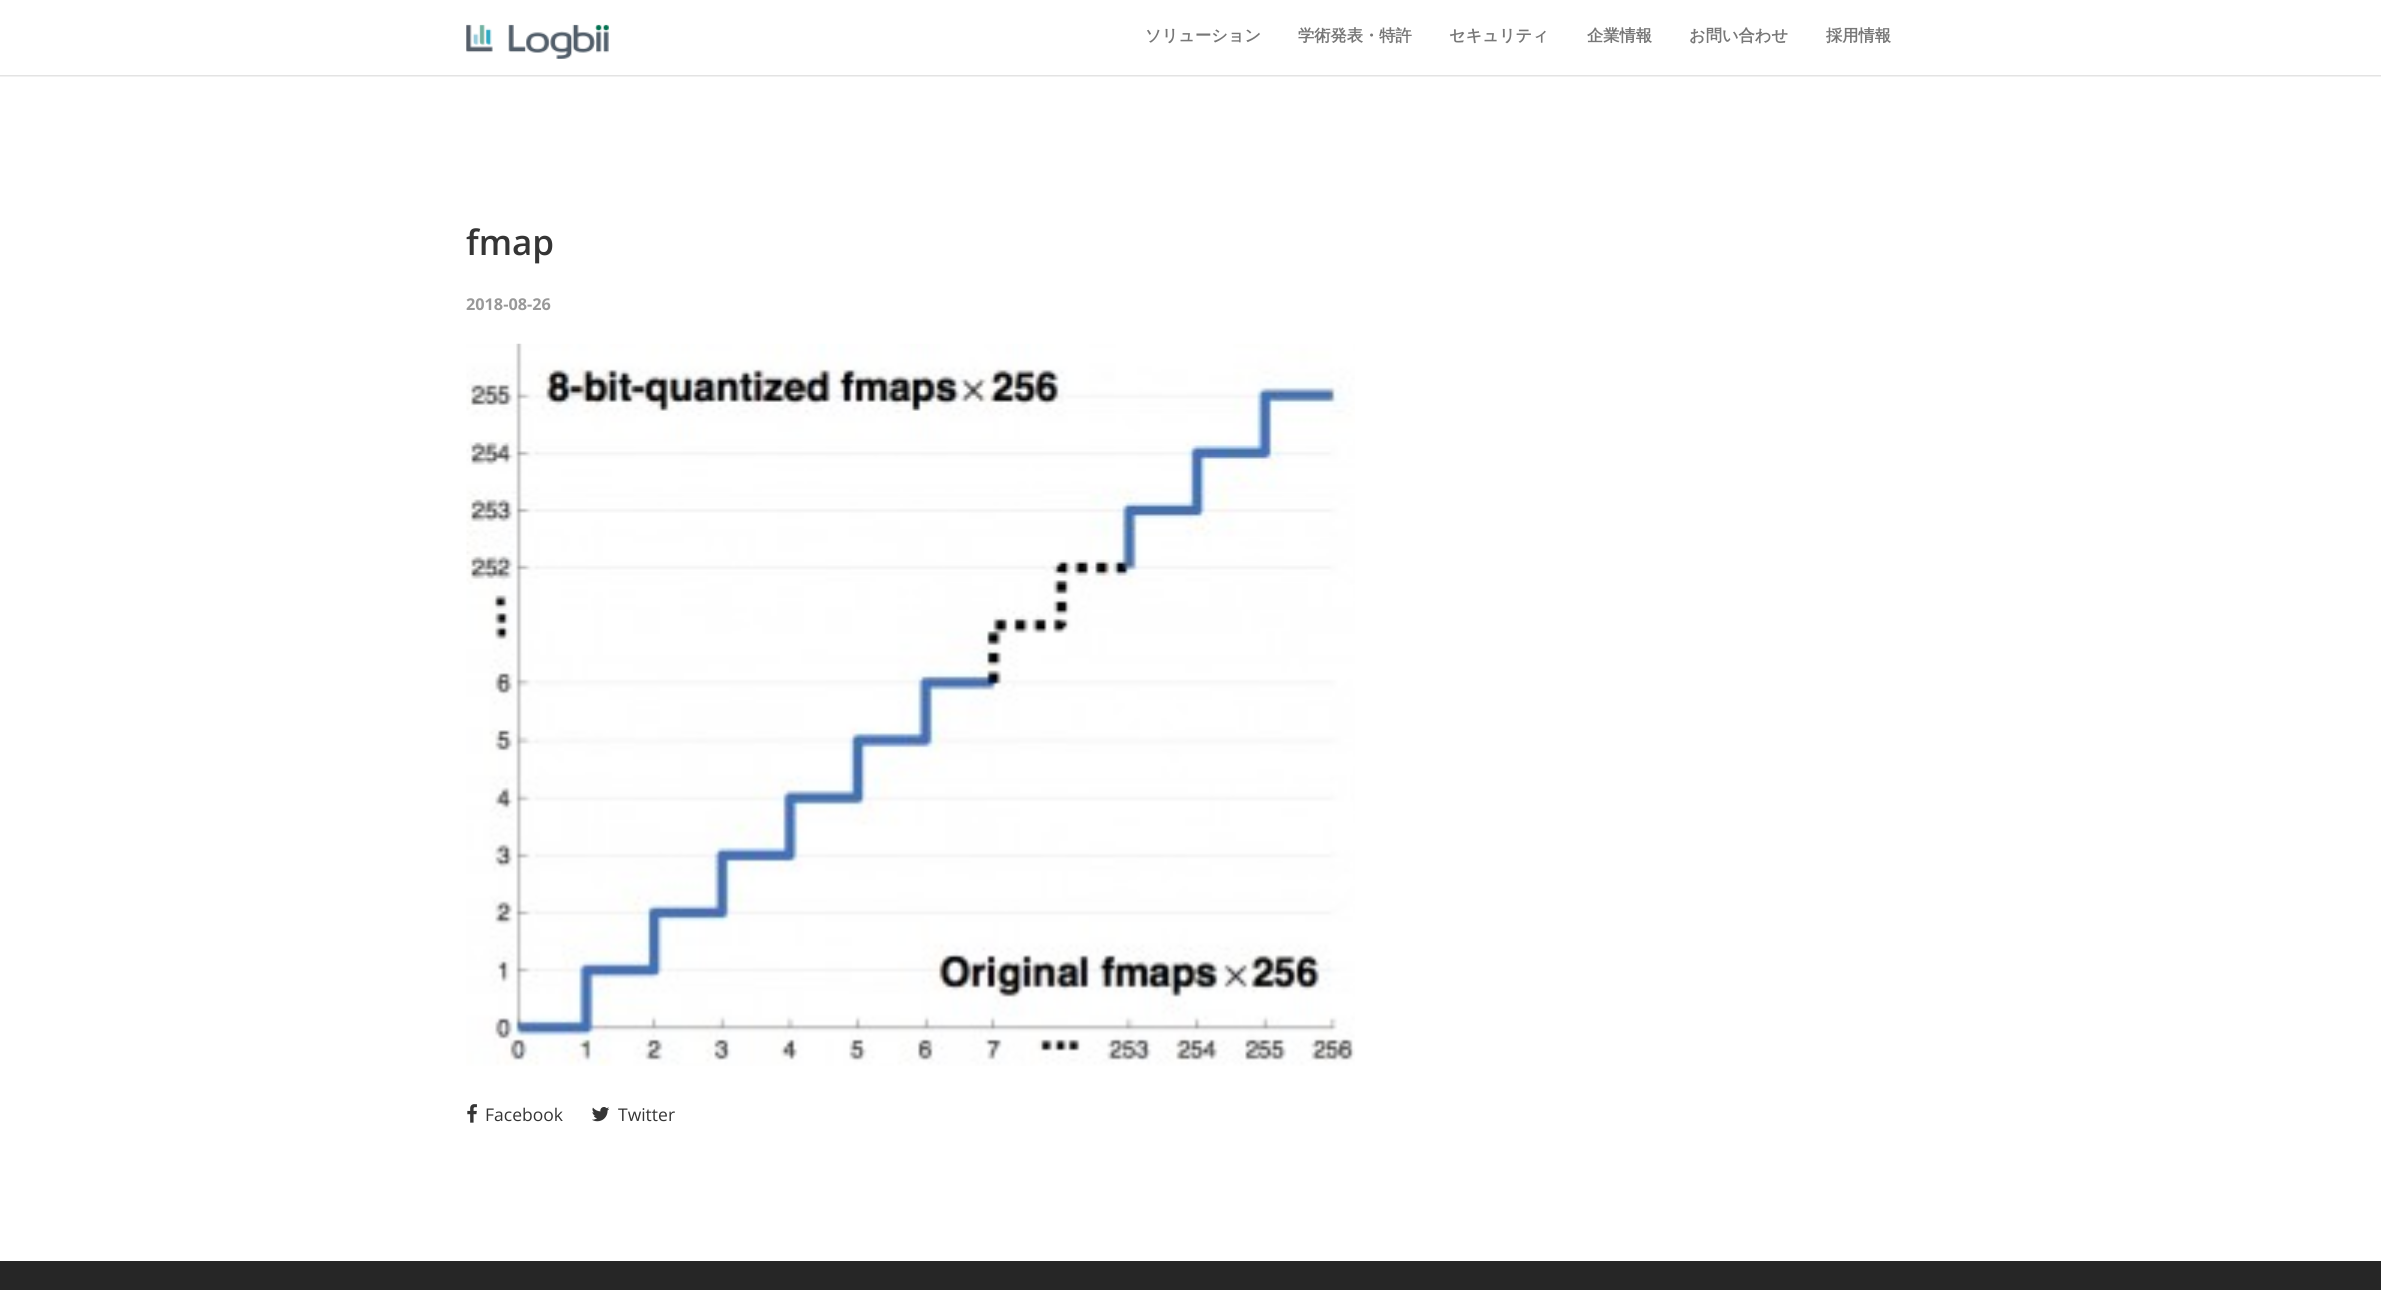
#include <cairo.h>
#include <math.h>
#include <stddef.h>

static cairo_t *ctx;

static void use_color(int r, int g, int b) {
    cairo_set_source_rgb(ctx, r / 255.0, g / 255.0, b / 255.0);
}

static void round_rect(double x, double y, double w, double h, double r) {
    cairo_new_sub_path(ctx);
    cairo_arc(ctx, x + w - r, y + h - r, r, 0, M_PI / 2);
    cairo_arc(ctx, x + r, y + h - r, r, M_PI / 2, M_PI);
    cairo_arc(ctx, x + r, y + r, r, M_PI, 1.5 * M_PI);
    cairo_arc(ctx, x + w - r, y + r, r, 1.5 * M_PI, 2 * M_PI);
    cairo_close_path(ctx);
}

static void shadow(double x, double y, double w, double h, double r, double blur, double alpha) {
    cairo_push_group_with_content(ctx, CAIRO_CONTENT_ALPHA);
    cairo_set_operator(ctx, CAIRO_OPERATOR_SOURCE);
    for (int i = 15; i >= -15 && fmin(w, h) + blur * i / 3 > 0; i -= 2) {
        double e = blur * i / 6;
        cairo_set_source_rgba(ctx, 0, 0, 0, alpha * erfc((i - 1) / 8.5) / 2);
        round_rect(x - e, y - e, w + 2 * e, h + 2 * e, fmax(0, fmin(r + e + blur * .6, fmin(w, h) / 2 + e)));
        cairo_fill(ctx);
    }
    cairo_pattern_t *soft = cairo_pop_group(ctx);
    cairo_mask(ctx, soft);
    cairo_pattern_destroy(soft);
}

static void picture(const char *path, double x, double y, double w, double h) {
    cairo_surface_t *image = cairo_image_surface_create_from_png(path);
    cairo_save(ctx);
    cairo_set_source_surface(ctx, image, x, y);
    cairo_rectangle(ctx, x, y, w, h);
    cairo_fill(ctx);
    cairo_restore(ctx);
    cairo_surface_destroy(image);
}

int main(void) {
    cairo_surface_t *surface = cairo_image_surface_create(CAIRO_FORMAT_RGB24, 2381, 1290);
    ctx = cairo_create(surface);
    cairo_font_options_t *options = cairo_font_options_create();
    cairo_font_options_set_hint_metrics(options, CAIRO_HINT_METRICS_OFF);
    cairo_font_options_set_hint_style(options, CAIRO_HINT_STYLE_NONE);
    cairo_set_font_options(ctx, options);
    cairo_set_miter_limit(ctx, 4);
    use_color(255, 255, 255);
    cairo_paint(ctx);
    cairo_save(ctx);
    cairo_rectangle(ctx, 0, 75, 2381, 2);
    cairo_clip(ctx);
    use_color(0, 0, 0);
    shadow(-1, -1, 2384, 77, 0, 1, 0.16);
    cairo_restore(ctx);
    picture("img1.png", 466, 24, 143, 35);
    cairo_select_font_face(ctx, "WenQuanYi Zen Hei", CAIRO_FONT_SLANT_NORMAL, CAIRO_FONT_WEIGHT_BOLD);
    cairo_set_font_size(ctx, 16.25);
    use_color(119, 119, 119);
    cairo_move_to(ctx, 1145, 41);
    cairo_show_text(ctx, "ソリューション");
    cairo_move_to(ctx, 1298, 41);
    cairo_show_text(ctx, "学術発表・特許");
    cairo_move_to(ctx, 1449, 41);
    cairo_show_text(ctx, "セキュリティ");
    cairo_move_to(ctx, 1587, 41);
    cairo_show_text(ctx, "企業情報");
    cairo_move_to(ctx, 1689, 41);
    cairo_show_text(ctx, "お問い合わせ");
    cairo_move_to(ctx, 1826, 41);
    cairo_show_text(ctx, "採用情報");
    cairo_select_font_face(ctx, "Open Sans SemiBold", CAIRO_FONT_SLANT_NORMAL, CAIRO_FONT_WEIGHT_NORMAL);
    cairo_set_font_size(ctx, 35);
    use_color(53, 53, 53);
    cairo_move_to(ctx, 466, 255);
    cairo_show_text(ctx, "fmap");
    cairo_select_font_face(ctx, "Open Sans", CAIRO_FONT_SLANT_NORMAL, CAIRO_FONT_WEIGHT_BOLD);
    cairo_set_font_size(ctx, 16.25);
    use_color(153, 153, 153);
    cairo_move_to(ctx, 466, 310);
    cairo_show_text(ctx, "2018-08-26");
    picture("img2.png", 466, 343, 889, 723);
    picture("img3.png", 467, 1104, 10, 19);
    cairo_select_font_face(ctx, "Open Sans", CAIRO_FONT_SLANT_NORMAL, CAIRO_FONT_WEIGHT_NORMAL);
    cairo_set_font_size(ctx, 17.5);
    use_color(53, 53, 53);
    cairo_move_to(ctx, 485, 1121);
    cairo_show_text(ctx, "Facebook");
    picture("img4.png", 592, 1107, 18, 15);
    cairo_move_to(ctx, 618, 1121);
    cairo_show_text(ctx, "Twitter");
    use_color(38, 38, 38);
    cairo_rectangle(ctx, 0, 1261, 2381, 29);
    cairo_fill(ctx);
    cairo_surface_write_to_png(surface, "result.png");
    cairo_font_options_destroy(options);
    cairo_destroy(ctx);
    cairo_surface_destroy(surface);
    return 0;
}
